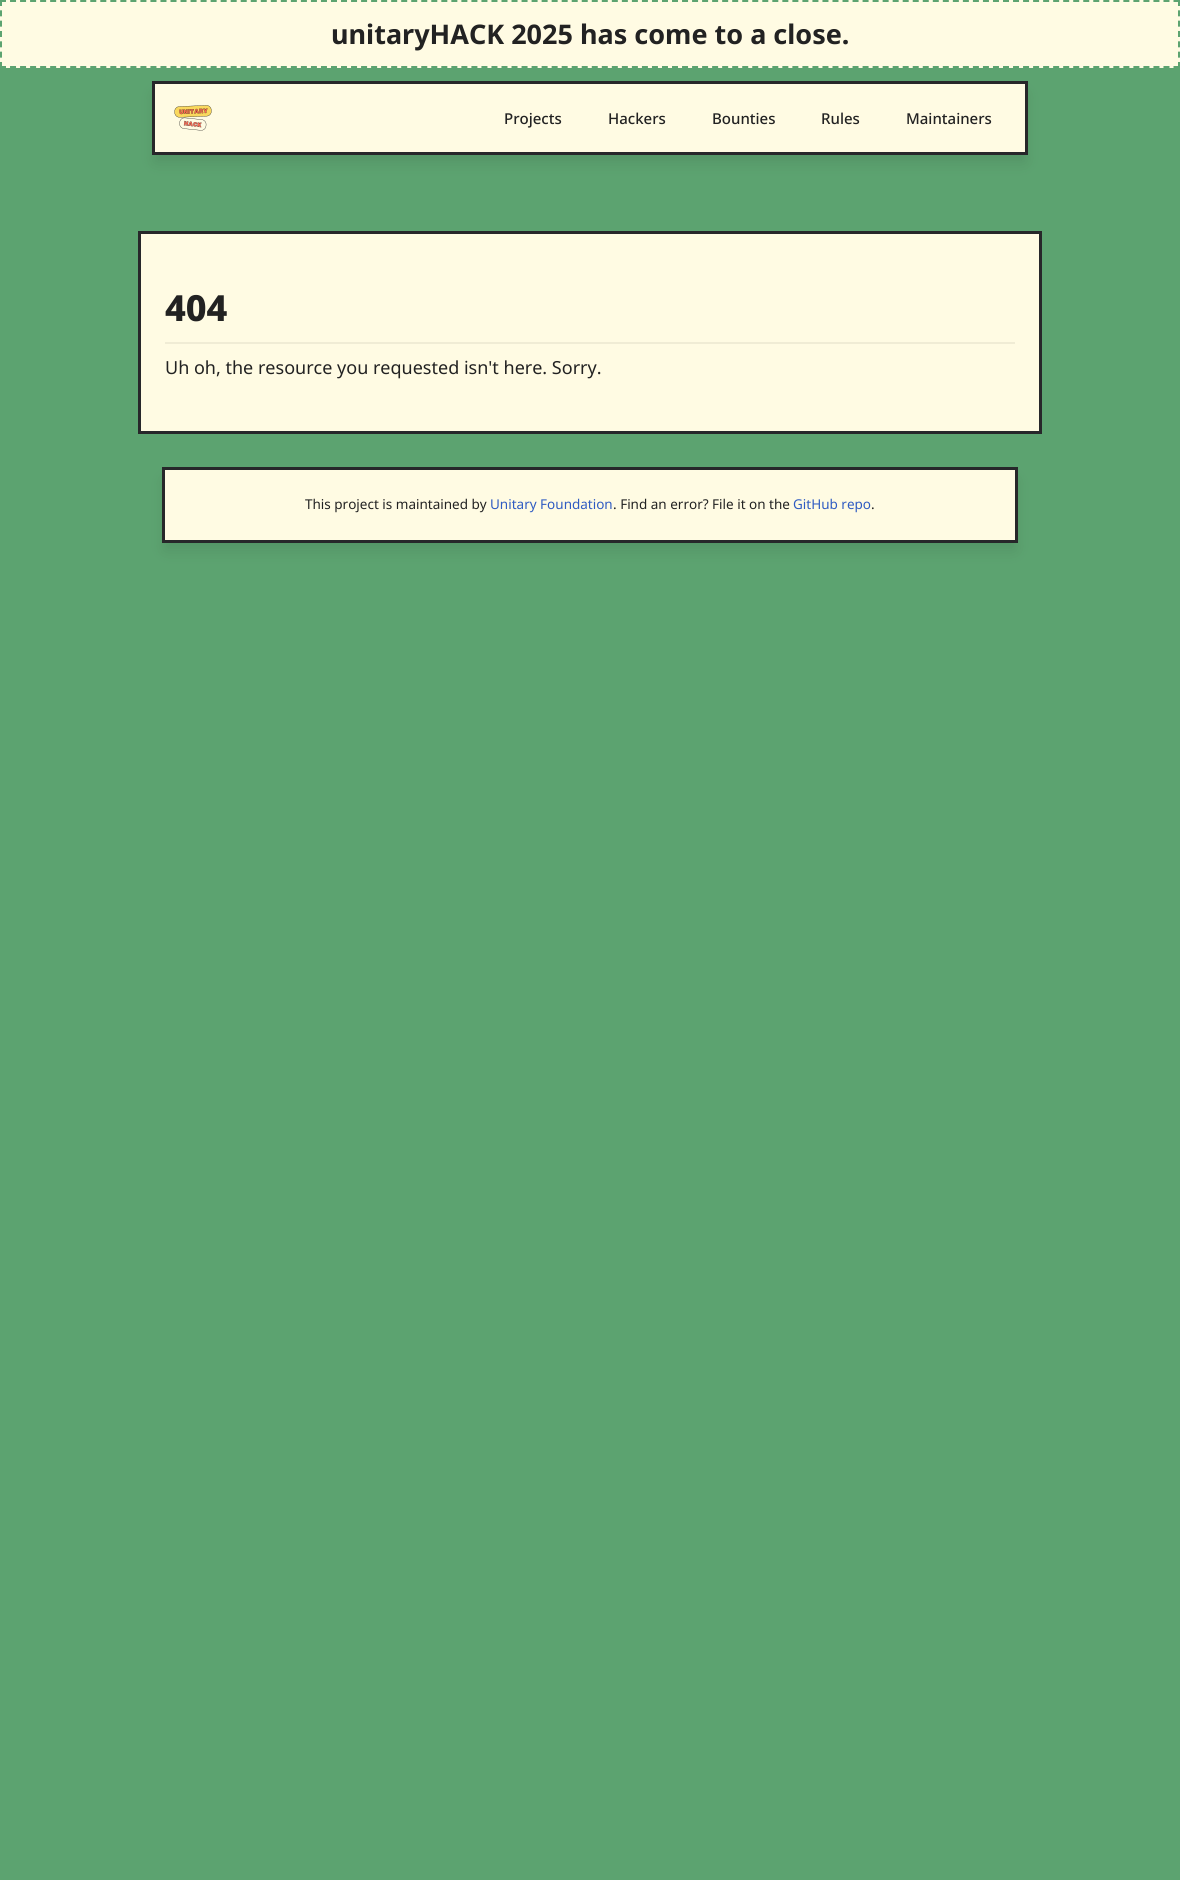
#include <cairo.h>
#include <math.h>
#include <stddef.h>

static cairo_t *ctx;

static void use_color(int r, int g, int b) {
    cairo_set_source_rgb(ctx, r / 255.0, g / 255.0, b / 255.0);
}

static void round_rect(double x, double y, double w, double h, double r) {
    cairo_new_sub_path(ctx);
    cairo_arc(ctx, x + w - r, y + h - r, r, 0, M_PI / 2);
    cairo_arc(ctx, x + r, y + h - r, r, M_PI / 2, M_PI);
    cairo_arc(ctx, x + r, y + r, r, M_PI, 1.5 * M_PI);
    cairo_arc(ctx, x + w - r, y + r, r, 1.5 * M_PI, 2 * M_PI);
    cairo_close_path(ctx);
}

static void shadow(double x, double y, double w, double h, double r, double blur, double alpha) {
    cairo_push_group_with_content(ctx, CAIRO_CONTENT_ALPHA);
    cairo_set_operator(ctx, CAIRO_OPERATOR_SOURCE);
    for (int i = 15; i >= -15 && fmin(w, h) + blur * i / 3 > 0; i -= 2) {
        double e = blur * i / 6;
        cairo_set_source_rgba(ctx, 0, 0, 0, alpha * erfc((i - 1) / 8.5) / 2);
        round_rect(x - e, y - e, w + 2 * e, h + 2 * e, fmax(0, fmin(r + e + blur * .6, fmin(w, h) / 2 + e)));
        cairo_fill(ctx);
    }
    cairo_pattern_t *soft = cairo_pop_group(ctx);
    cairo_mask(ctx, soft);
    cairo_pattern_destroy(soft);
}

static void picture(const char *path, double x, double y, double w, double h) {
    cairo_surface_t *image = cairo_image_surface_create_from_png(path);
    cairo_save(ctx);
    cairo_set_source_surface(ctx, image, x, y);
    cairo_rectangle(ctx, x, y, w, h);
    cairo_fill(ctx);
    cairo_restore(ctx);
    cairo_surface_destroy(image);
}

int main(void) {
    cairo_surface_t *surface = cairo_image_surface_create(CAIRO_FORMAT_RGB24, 1180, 1880);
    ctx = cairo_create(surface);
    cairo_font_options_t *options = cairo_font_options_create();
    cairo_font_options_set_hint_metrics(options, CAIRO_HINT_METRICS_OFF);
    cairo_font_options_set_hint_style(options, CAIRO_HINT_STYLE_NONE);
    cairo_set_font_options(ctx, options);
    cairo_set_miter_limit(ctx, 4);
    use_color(92, 163, 112);
    cairo_paint(ctx);
    use_color(255, 251, 227);
    cairo_rectangle(ctx, 0, 0, 1180, 68);
    cairo_fill(ctx);
    cairo_new_path(ctx);
    cairo_move_to(ctx, 0, 1);
    cairo_line_to(ctx, 1180, 1);
    use_color(92, 163, 112);
    cairo_set_dash(ctx, (double[]){6, 4.03}, 2, 0);
    cairo_stroke(ctx);
    cairo_new_path(ctx);
    cairo_move_to(ctx, 1179, 0);
    cairo_line_to(ctx, 1179, 68);
    cairo_set_dash(ctx, (double[]){6, 4.33}, 2, 0);
    cairo_stroke(ctx);
    cairo_new_path(ctx);
    cairo_move_to(ctx, 0, 67);
    cairo_line_to(ctx, 1180, 67);
    cairo_set_dash(ctx, (double[]){6, 4.03}, 2, 0);
    cairo_stroke(ctx);
    cairo_new_path(ctx);
    cairo_move_to(ctx, 1, 0);
    cairo_line_to(ctx, 1, 68);
    cairo_set_dash(ctx, (double[]){6, 4.33}, 2, 0);
    cairo_stroke(ctx);
    cairo_select_font_face(ctx, "Noto Sans", CAIRO_FONT_SLANT_NORMAL, CAIRO_FONT_WEIGHT_BOLD);
    cairo_set_font_size(ctx, 27);
    use_color(34, 34, 34);
    cairo_move_to(ctx, 331, 44);
    cairo_show_text(ctx, "unitaryHACK 2025 has come to a close.");
    use_color(0, 0, 0);
    shadow(155, 94, 870, 68, 0, 7.5, 0.1);
    use_color(255, 251, 227);
    cairo_rectangle(ctx, 153.5, 82.5, 873, 71);
    cairo_fill_preserve(ctx);
    use_color(39, 39, 42);
    cairo_set_line_width(ctx, 3);
    cairo_set_dash(ctx, NULL, 0, 0);
    cairo_stroke(ctx);
    picture("img1.png", 174, 105, 38, 26);
    cairo_select_font_face(ctx, "Noto Sans Medium", CAIRO_FONT_SLANT_NORMAL, CAIRO_FONT_WEIGHT_NORMAL);
    cairo_set_font_size(ctx, 15);
    use_color(34, 34, 34);
    cairo_move_to(ctx, 504, 124);
    cairo_show_text(ctx, "Projects");
    cairo_move_to(ctx, 608, 124);
    cairo_show_text(ctx, "Hackers");
    cairo_move_to(ctx, 712, 124);
    cairo_show_text(ctx, "Bounties");
    cairo_move_to(ctx, 821, 124);
    cairo_show_text(ctx, "Rules");
    cairo_move_to(ctx, 906, 124);
    cairo_show_text(ctx, "Maintainers");
    use_color(255, 251, 227);
    cairo_rectangle(ctx, 139.5, 232.5, 901, 200);
    cairo_fill_preserve(ctx);
    use_color(39, 39, 42);
    cairo_stroke(ctx);
    cairo_select_font_face(ctx, "Noto Sans ExtraBold", CAIRO_FONT_SLANT_NORMAL, CAIRO_FONT_WEIGHT_NORMAL);
    cairo_set_font_size(ctx, 36);
    use_color(34, 34, 34);
    cairo_move_to(ctx, 165, 321);
    cairo_show_text(ctx, "404");
    use_color(240, 236, 213);
    cairo_rectangle(ctx, 165, 342, 850, 2);
    cairo_fill(ctx);
    cairo_select_font_face(ctx, "Noto Sans", CAIRO_FONT_SLANT_NORMAL, CAIRO_FONT_WEIGHT_NORMAL);
    cairo_set_font_size(ctx, 18);
    use_color(34, 34, 34);
    cairo_move_to(ctx, 165, 374);
    cairo_show_text(ctx, "Uh oh, the resource you requested isn't here. Sorry.");
    use_color(0, 0, 0);
    shadow(165, 480, 850, 70, 0, 7.5, 0.1);
    use_color(255, 251, 227);
    cairo_rectangle(ctx, 163.5, 468.5, 853, 73);
    cairo_fill_preserve(ctx);
    use_color(39, 39, 42);
    cairo_stroke(ctx);
    cairo_set_font_size(ctx, 13.5);
    use_color(34, 34, 34);
    cairo_move_to(ctx, 305, 509);
    cairo_show_text(ctx, "This project is maintained by");
    use_color(47, 91, 194);
    cairo_move_to(ctx, 490, 509);
    cairo_show_text(ctx, "Unitary Foundation");
    use_color(34, 34, 34);
    cairo_move_to(ctx, 613, 509);
    cairo_show_text(ctx, ". Find an error? File it on the");
    use_color(47, 91, 194);
    cairo_move_to(ctx, 793, 509);
    cairo_show_text(ctx, "GitHub repo");
    use_color(34, 34, 34);
    cairo_move_to(ctx, 871, 509);
    cairo_show_text(ctx, ".");
    cairo_surface_write_to_png(surface, "result.png");
    cairo_font_options_destroy(options);
    cairo_destroy(ctx);
    cairo_surface_destroy(surface);
    return 0;
}
